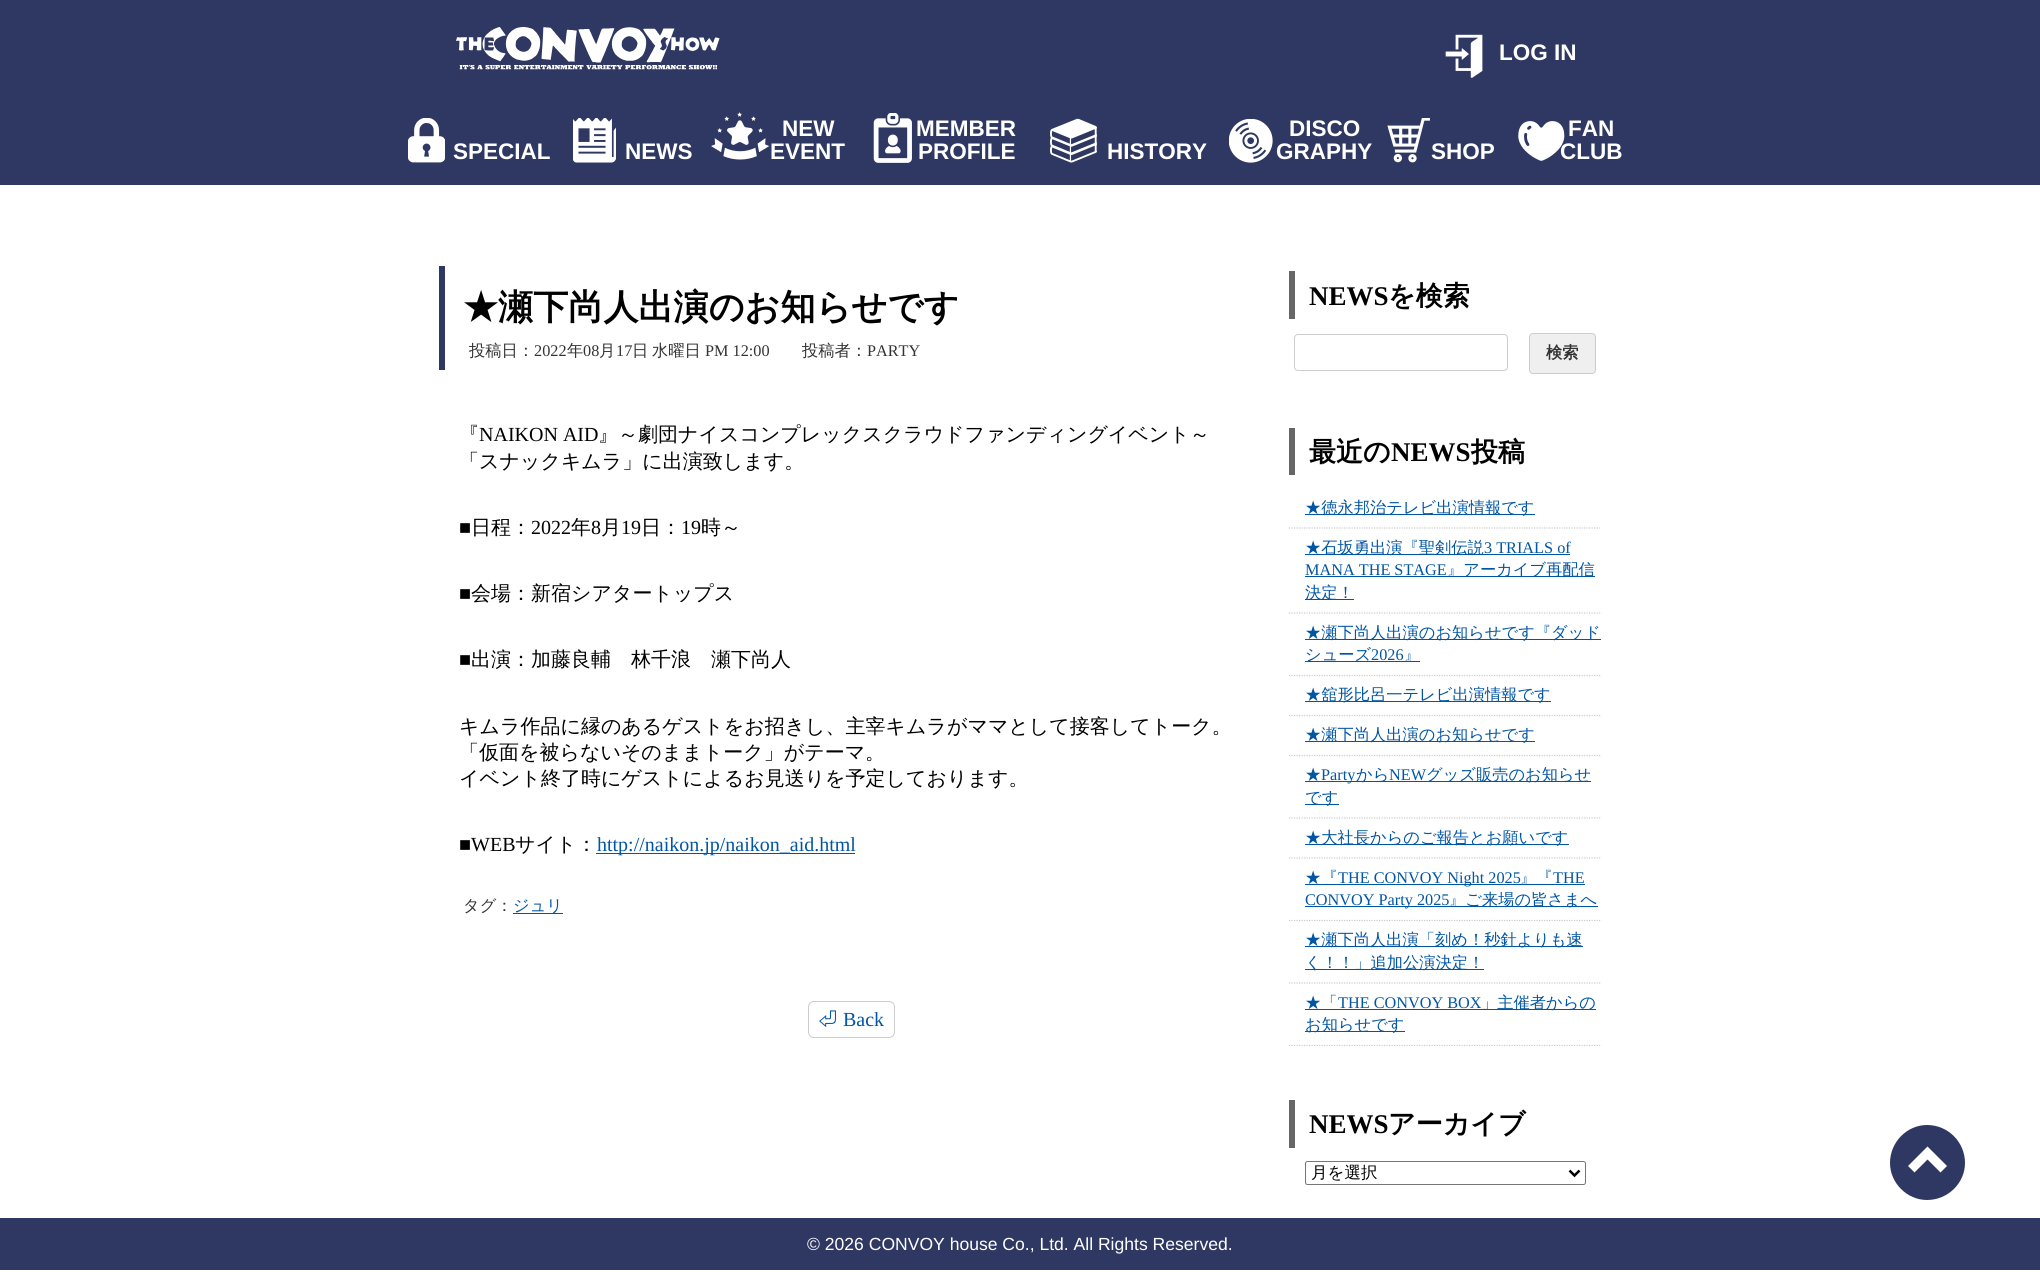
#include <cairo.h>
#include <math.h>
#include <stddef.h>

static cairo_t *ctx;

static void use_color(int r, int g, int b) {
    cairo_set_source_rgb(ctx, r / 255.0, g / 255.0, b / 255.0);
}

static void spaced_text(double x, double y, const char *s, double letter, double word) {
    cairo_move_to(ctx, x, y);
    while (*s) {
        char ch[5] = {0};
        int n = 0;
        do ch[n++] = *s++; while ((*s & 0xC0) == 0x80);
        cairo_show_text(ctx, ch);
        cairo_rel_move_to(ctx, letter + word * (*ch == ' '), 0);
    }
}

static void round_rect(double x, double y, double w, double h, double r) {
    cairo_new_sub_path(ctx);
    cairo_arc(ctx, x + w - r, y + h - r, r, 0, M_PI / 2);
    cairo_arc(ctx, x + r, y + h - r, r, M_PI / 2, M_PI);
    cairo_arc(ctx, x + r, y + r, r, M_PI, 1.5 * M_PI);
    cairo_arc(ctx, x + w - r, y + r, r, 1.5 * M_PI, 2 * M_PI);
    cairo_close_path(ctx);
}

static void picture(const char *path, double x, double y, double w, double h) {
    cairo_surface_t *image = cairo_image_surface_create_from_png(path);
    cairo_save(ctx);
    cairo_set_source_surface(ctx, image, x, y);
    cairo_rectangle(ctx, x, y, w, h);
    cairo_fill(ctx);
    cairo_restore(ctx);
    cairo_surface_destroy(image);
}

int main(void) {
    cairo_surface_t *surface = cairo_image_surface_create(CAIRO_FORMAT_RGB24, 2040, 1275);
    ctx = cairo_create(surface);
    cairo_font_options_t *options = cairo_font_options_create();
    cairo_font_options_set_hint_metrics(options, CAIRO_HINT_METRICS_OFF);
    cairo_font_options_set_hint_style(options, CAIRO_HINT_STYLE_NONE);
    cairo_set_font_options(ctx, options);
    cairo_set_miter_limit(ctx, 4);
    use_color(255, 255, 255);
    cairo_paint(ctx);
    use_color(46, 56, 98);
    cairo_rectangle(ctx, 0, 0, 2040, 185);
    cairo_fill(ctx);
    picture("img1.png", 456, 27, 264, 43);
    picture("img2.png", 1445, 34, 38, 44);
    cairo_select_font_face(ctx, "Liberation Sans", CAIRO_FONT_SLANT_NORMAL, CAIRO_FONT_WEIGHT_BOLD);
    cairo_set_font_size(ctx, 22.5);
    use_color(255, 255, 255);
    cairo_move_to(ctx, 1499, 60);
    cairo_show_text(ctx, "LOG IN");
    picture("img3.png", 408, 118, 37, 45);
    cairo_move_to(ctx, 453, 159);
    cairo_show_text(ctx, "SPECIAL");
    picture("img4.png", 573, 118, 43, 45);
    cairo_move_to(ctx, 625, 159);
    cairo_show_text(ctx, "NEWS");
    picture("img5.png", 711, 112, 58, 48);
    cairo_move_to(ctx, 782, 136);
    cairo_show_text(ctx, "NEW");
    cairo_move_to(ctx, 770, 159);
    cairo_show_text(ctx, "EVENT");
    picture("img6.png", 873, 113, 39, 50);
    cairo_move_to(ctx, 916, 136);
    cairo_show_text(ctx, "MEMBER");
    cairo_move_to(ctx, 918, 159);
    cairo_show_text(ctx, "PROFILE");
    picture("img7.png", 1050, 118, 47, 45);
    cairo_move_to(ctx, 1107, 159);
    cairo_show_text(ctx, "HISTORY");
    picture("img8.png", 1229, 119, 44, 44);
    cairo_move_to(ctx, 1289, 136);
    cairo_show_text(ctx, "DISCO");
    cairo_move_to(ctx, 1276, 159);
    cairo_show_text(ctx, "GRAPHY");
    picture("img9.png", 1387, 118, 43, 45);
    cairo_move_to(ctx, 1431, 159);
    cairo_show_text(ctx, "SHOP");
    picture("img10.png", 1518, 121, 47, 40);
    cairo_move_to(ctx, 1568, 136);
    cairo_show_text(ctx, "FAN");
    cairo_move_to(ctx, 1560, 159);
    cairo_show_text(ctx, "CLUB");
    use_color(46, 56, 98);
    cairo_rectangle(ctx, 439, 266, 6, 104);
    cairo_fill(ctx);
    cairo_select_font_face(ctx, "WenQuanYi Zen Hei", CAIRO_FONT_SLANT_NORMAL, CAIRO_FONT_WEIGHT_BOLD);
    cairo_set_font_size(ctx, 35.1);
    use_color(0, 0, 0);
    cairo_move_to(ctx, 463, 319);
    cairo_show_text(ctx, "★瀬下尚人出演のお知らせです");
    cairo_select_font_face(ctx, "WenQuanYi Zen Hei Medium", CAIRO_FONT_SLANT_NORMAL, CAIRO_FONT_WEIGHT_NORMAL);
    cairo_set_font_size(ctx, 16.25);
    use_color(51, 51, 51);
    cairo_move_to(ctx, 469, 356);
    cairo_show_text(ctx, "投稿日：");
    cairo_select_font_face(ctx, "Liberation Serif", CAIRO_FONT_SLANT_NORMAL, CAIRO_FONT_WEIGHT_NORMAL);
    cairo_move_to(ctx, 534, 356);
    cairo_show_text(ctx, "2022");
    cairo_select_font_face(ctx, "WenQuanYi Zen Hei Medium", CAIRO_FONT_SLANT_NORMAL, CAIRO_FONT_WEIGHT_NORMAL);
    cairo_move_to(ctx, 567, 356);
    cairo_show_text(ctx, "年");
    cairo_select_font_face(ctx, "Liberation Serif", CAIRO_FONT_SLANT_NORMAL, CAIRO_FONT_WEIGHT_NORMAL);
    cairo_move_to(ctx, 583, 356);
    cairo_show_text(ctx, "08");
    cairo_select_font_face(ctx, "WenQuanYi Zen Hei Medium", CAIRO_FONT_SLANT_NORMAL, CAIRO_FONT_WEIGHT_NORMAL);
    cairo_move_to(ctx, 599, 356);
    cairo_show_text(ctx, "月");
    cairo_select_font_face(ctx, "Liberation Serif", CAIRO_FONT_SLANT_NORMAL, CAIRO_FONT_WEIGHT_NORMAL);
    cairo_move_to(ctx, 616, 356);
    cairo_show_text(ctx, "17");
    cairo_select_font_face(ctx, "WenQuanYi Zen Hei Medium", CAIRO_FONT_SLANT_NORMAL, CAIRO_FONT_WEIGHT_NORMAL);
    spaced_text(632, 356, "日 水曜日", 0, -1);
    cairo_select_font_face(ctx, "Liberation Serif", CAIRO_FONT_SLANT_NORMAL, CAIRO_FONT_WEIGHT_NORMAL);
    cairo_move_to(ctx, 705, 356);
    cairo_show_text(ctx, "PM 12:00");
    cairo_select_font_face(ctx, "WenQuanYi Zen Hei Medium", CAIRO_FONT_SLANT_NORMAL, CAIRO_FONT_WEIGHT_NORMAL);
    cairo_move_to(ctx, 802, 356);
    cairo_show_text(ctx, "投稿者：");
    cairo_select_font_face(ctx, "Liberation Serif", CAIRO_FONT_SLANT_NORMAL, CAIRO_FONT_WEIGHT_NORMAL);
    cairo_move_to(ctx, 867, 356);
    cairo_show_text(ctx, "PARTY");
    cairo_select_font_face(ctx, "WenQuanYi Zen Hei Medium", CAIRO_FONT_SLANT_NORMAL, CAIRO_FONT_WEIGHT_NORMAL);
    cairo_set_font_size(ctx, 20);
    use_color(0, 0, 0);
    cairo_move_to(ctx, 459, 441);
    cairo_show_text(ctx, "『");
    cairo_select_font_face(ctx, "Liberation Serif", CAIRO_FONT_SLANT_NORMAL, CAIRO_FONT_WEIGHT_NORMAL);
    cairo_move_to(ctx, 479, 441);
    cairo_show_text(ctx, "NAIKON AID");
    cairo_select_font_face(ctx, "WenQuanYi Zen Hei Medium", CAIRO_FONT_SLANT_NORMAL, CAIRO_FONT_WEIGHT_NORMAL);
    cairo_move_to(ctx, 598, 441);
    cairo_show_text(ctx, "』～劇団ナイスコンプレックスクラウドファンディングイベント～");
    cairo_move_to(ctx, 459, 468);
    cairo_show_text(ctx, "「スナックキムラ」に出演致します。");
    cairo_select_font_face(ctx, "Liberation Serif", CAIRO_FONT_SLANT_NORMAL, CAIRO_FONT_WEIGHT_NORMAL);
    cairo_move_to(ctx, 459, 534);
    cairo_show_text(ctx, "■");
    cairo_select_font_face(ctx, "WenQuanYi Zen Hei Medium", CAIRO_FONT_SLANT_NORMAL, CAIRO_FONT_WEIGHT_NORMAL);
    cairo_move_to(ctx, 471, 534);
    cairo_show_text(ctx, "日程：");
    cairo_select_font_face(ctx, "Liberation Serif", CAIRO_FONT_SLANT_NORMAL, CAIRO_FONT_WEIGHT_NORMAL);
    cairo_move_to(ctx, 531, 534);
    cairo_show_text(ctx, "2022");
    cairo_select_font_face(ctx, "WenQuanYi Zen Hei Medium", CAIRO_FONT_SLANT_NORMAL, CAIRO_FONT_WEIGHT_NORMAL);
    cairo_move_to(ctx, 571, 534);
    cairo_show_text(ctx, "年");
    cairo_select_font_face(ctx, "Liberation Serif", CAIRO_FONT_SLANT_NORMAL, CAIRO_FONT_WEIGHT_NORMAL);
    cairo_move_to(ctx, 591, 534);
    cairo_show_text(ctx, "8");
    cairo_select_font_face(ctx, "WenQuanYi Zen Hei Medium", CAIRO_FONT_SLANT_NORMAL, CAIRO_FONT_WEIGHT_NORMAL);
    cairo_move_to(ctx, 601, 534);
    cairo_show_text(ctx, "月");
    cairo_select_font_face(ctx, "Liberation Serif", CAIRO_FONT_SLANT_NORMAL, CAIRO_FONT_WEIGHT_NORMAL);
    cairo_move_to(ctx, 621, 534);
    cairo_show_text(ctx, "19");
    cairo_select_font_face(ctx, "WenQuanYi Zen Hei Medium", CAIRO_FONT_SLANT_NORMAL, CAIRO_FONT_WEIGHT_NORMAL);
    cairo_move_to(ctx, 641, 534);
    cairo_show_text(ctx, "日：");
    cairo_select_font_face(ctx, "Liberation Serif", CAIRO_FONT_SLANT_NORMAL, CAIRO_FONT_WEIGHT_NORMAL);
    cairo_move_to(ctx, 681, 534);
    cairo_show_text(ctx, "19");
    cairo_select_font_face(ctx, "WenQuanYi Zen Hei Medium", CAIRO_FONT_SLANT_NORMAL, CAIRO_FONT_WEIGHT_NORMAL);
    cairo_move_to(ctx, 701, 534);
    cairo_show_text(ctx, "時～");
    cairo_select_font_face(ctx, "Liberation Serif", CAIRO_FONT_SLANT_NORMAL, CAIRO_FONT_WEIGHT_NORMAL);
    cairo_move_to(ctx, 459, 600);
    cairo_show_text(ctx, "■");
    cairo_select_font_face(ctx, "WenQuanYi Zen Hei Medium", CAIRO_FONT_SLANT_NORMAL, CAIRO_FONT_WEIGHT_NORMAL);
    cairo_move_to(ctx, 471, 600);
    cairo_show_text(ctx, "会場：新宿シアタートップス");
    cairo_select_font_face(ctx, "Liberation Serif", CAIRO_FONT_SLANT_NORMAL, CAIRO_FONT_WEIGHT_NORMAL);
    cairo_move_to(ctx, 459, 666);
    cairo_show_text(ctx, "■");
    cairo_select_font_face(ctx, "WenQuanYi Zen Hei Medium", CAIRO_FONT_SLANT_NORMAL, CAIRO_FONT_WEIGHT_NORMAL);
    cairo_move_to(ctx, 471, 666);
    cairo_show_text(ctx, "出演：加藤良輔　林千浪　瀬下尚人");
    cairo_move_to(ctx, 459, 733);
    cairo_show_text(ctx, "キムラ作品に縁のあるゲストをお招きし、主宰キムラがママとして接客してトーク。");
    cairo_move_to(ctx, 459, 759);
    cairo_show_text(ctx, "「仮面を被らないそのままトーク」がテーマ。");
    cairo_move_to(ctx, 459, 785);
    cairo_show_text(ctx, "イベント終了時にゲストによるお見送りを予定しております。");
    cairo_select_font_face(ctx, "Liberation Serif", CAIRO_FONT_SLANT_NORMAL, CAIRO_FONT_WEIGHT_NORMAL);
    cairo_move_to(ctx, 459, 851);
    cairo_show_text(ctx, "■WEB");
    cairo_select_font_face(ctx, "WenQuanYi Zen Hei Medium", CAIRO_FONT_SLANT_NORMAL, CAIRO_FONT_WEIGHT_NORMAL);
    cairo_move_to(ctx, 515, 851);
    cairo_show_text(ctx, "サイト：");
    use_color(0, 85, 165);
    cairo_rectangle(ctx, 596, 853, 259, 1);
    cairo_fill(ctx);
    cairo_select_font_face(ctx, "Liberation Serif", CAIRO_FONT_SLANT_NORMAL, CAIRO_FONT_WEIGHT_NORMAL);
    cairo_move_to(ctx, 597, 851);
    cairo_show_text(ctx, "http://naikon.jp/naikon_aid.html");
    cairo_select_font_face(ctx, "WenQuanYi Zen Hei Medium", CAIRO_FONT_SLANT_NORMAL, CAIRO_FONT_WEIGHT_NORMAL);
    cairo_set_font_size(ctx, 16.25);
    use_color(51, 51, 51);
    cairo_move_to(ctx, 463, 911);
    cairo_show_text(ctx, "タグ：");
    use_color(0, 85, 165);
    cairo_rectangle(ctx, 513, 913, 50, 1);
    cairo_fill(ctx);
    cairo_move_to(ctx, 513, 911);
    cairo_show_text(ctx, "ジュリ");
    round_rect(808.5, 1001.5, 86, 36, 5.5);
    use_color(204, 204, 204);
    cairo_set_line_width(ctx, 1);
    cairo_stroke(ctx);
    cairo_select_font_face(ctx, "IPAPGothic", CAIRO_FONT_SLANT_NORMAL, CAIRO_FONT_WEIGHT_NORMAL);
    cairo_set_font_size(ctx, 20);
    use_color(0, 85, 165);
    cairo_move_to(ctx, 818, 1026);
    cairo_show_text(ctx, "⏎");
    cairo_select_font_face(ctx, "Liberation Serif", CAIRO_FONT_SLANT_NORMAL, CAIRO_FONT_WEIGHT_NORMAL);
    cairo_move_to(ctx, 843, 1026);
    cairo_show_text(ctx, "Back");
    use_color(102, 102, 102);
    cairo_rectangle(ctx, 1289, 271, 6, 48);
    cairo_fill(ctx);
    cairo_select_font_face(ctx, "Liberation Serif", CAIRO_FONT_SLANT_NORMAL, CAIRO_FONT_WEIGHT_BOLD);
    cairo_set_font_size(ctx, 27);
    use_color(0, 0, 0);
    cairo_move_to(ctx, 1309, 305);
    cairo_show_text(ctx, "NEWS");
    cairo_select_font_face(ctx, "WenQuanYi Zen Hei", CAIRO_FONT_SLANT_NORMAL, CAIRO_FONT_WEIGHT_BOLD);
    cairo_move_to(ctx, 1388, 305);
    cairo_show_text(ctx, "を検索");
    round_rect(1294.5, 334.5, 213, 36, 3.5);
    use_color(204, 204, 204);
    cairo_stroke(ctx);
    use_color(239, 239, 239);
    round_rect(1529.5, 333.5, 66, 40, 3.5);
    cairo_fill_preserve(ctx);
    use_color(204, 204, 204);
    cairo_stroke(ctx);
    cairo_set_font_size(ctx, 16.25);
    use_color(51, 51, 51);
    cairo_move_to(ctx, 1546, 358);
    cairo_show_text(ctx, "検索");
    use_color(102, 102, 102);
    cairo_rectangle(ctx, 1289, 428, 6, 47);
    cairo_fill(ctx);
    cairo_set_font_size(ctx, 27);
    use_color(0, 0, 0);
    cairo_move_to(ctx, 1309, 461);
    cairo_show_text(ctx, "最近の");
    cairo_select_font_face(ctx, "Liberation Serif", CAIRO_FONT_SLANT_NORMAL, CAIRO_FONT_WEIGHT_BOLD);
    cairo_move_to(ctx, 1391, 461);
    cairo_show_text(ctx, "NEWS");
    cairo_select_font_face(ctx, "WenQuanYi Zen Hei", CAIRO_FONT_SLANT_NORMAL, CAIRO_FONT_WEIGHT_BOLD);
    cairo_move_to(ctx, 1471, 461);
    cairo_show_text(ctx, "投稿");
    cairo_new_path(ctx);
    cairo_move_to(ctx, 1289, 528);
    cairo_line_to(ctx, 1601, 528);
    use_color(204, 204, 204);
    cairo_set_line_width(ctx, 1.2);
    cairo_set_dash(ctx, (double[]){1.25, 1.25}, 2, 0);
    cairo_stroke(ctx);
    use_color(0, 85, 165);
    cairo_rectangle(ctx, 1305, 514, 230, 1);
    cairo_fill(ctx);
    cairo_select_font_face(ctx, "WenQuanYi Zen Hei Medium", CAIRO_FONT_SLANT_NORMAL, CAIRO_FONT_WEIGHT_NORMAL);
    cairo_set_font_size(ctx, 16.25);
    cairo_move_to(ctx, 1305, 513);
    cairo_show_text(ctx, "★徳永邦治テレビ出演情報です");
    cairo_new_path(ctx);
    cairo_move_to(ctx, 1289, 613);
    cairo_line_to(ctx, 1601, 613);
    use_color(204, 204, 204);
    cairo_stroke(ctx);
    use_color(0, 85, 165);
    cairo_rectangle(ctx, 1305, 554, 265, 1);
    cairo_fill(ctx);
    cairo_move_to(ctx, 1305, 553);
    cairo_show_text(ctx, "★石坂勇出演『聖剣伝説");
    cairo_select_font_face(ctx, "Liberation Serif", CAIRO_FONT_SLANT_NORMAL, CAIRO_FONT_WEIGHT_NORMAL);
    cairo_move_to(ctx, 1484, 553);
    cairo_show_text(ctx, "3 TRIALS of");
    cairo_move_to(ctx, 1305, 575);
    cairo_show_text(ctx, "MANA THE STAGE");
    cairo_rectangle(ctx, 1305, 576, 290, 1);
    cairo_fill(ctx);
    cairo_select_font_face(ctx, "WenQuanYi Zen Hei Medium", CAIRO_FONT_SLANT_NORMAL, CAIRO_FONT_WEIGHT_NORMAL);
    cairo_move_to(ctx, 1447, 575);
    cairo_show_text(ctx, "』アーカイブ再配信");
    cairo_rectangle(ctx, 1305, 599, 49, 1);
    cairo_fill(ctx);
    cairo_move_to(ctx, 1305, 598);
    cairo_show_text(ctx, "決定！");
    cairo_new_path(ctx);
    cairo_move_to(ctx, 1289, 675.5);
    cairo_line_to(ctx, 1601, 675.5);
    use_color(204, 204, 204);
    cairo_stroke(ctx);
    use_color(0, 85, 165);
    cairo_rectangle(ctx, 1305, 639, 296, 1);
    cairo_fill(ctx);
    cairo_move_to(ctx, 1305, 638);
    cairo_show_text(ctx, "★瀬下尚人出演のお知らせです『ダッド");
    cairo_rectangle(ctx, 1305, 661, 115, 1);
    cairo_fill(ctx);
    cairo_move_to(ctx, 1305, 660);
    cairo_show_text(ctx, "シューズ");
    cairo_select_font_face(ctx, "Liberation Serif", CAIRO_FONT_SLANT_NORMAL, CAIRO_FONT_WEIGHT_NORMAL);
    cairo_move_to(ctx, 1371, 660);
    cairo_show_text(ctx, "2026");
    cairo_select_font_face(ctx, "WenQuanYi Zen Hei Medium", CAIRO_FONT_SLANT_NORMAL, CAIRO_FONT_WEIGHT_NORMAL);
    cairo_move_to(ctx, 1404, 660);
    cairo_show_text(ctx, "』");
    cairo_new_path(ctx);
    cairo_move_to(ctx, 1289, 715.5);
    cairo_line_to(ctx, 1601, 715.5);
    use_color(204, 204, 204);
    cairo_stroke(ctx);
    use_color(0, 85, 165);
    cairo_rectangle(ctx, 1305, 701, 246, 1);
    cairo_fill(ctx);
    cairo_move_to(ctx, 1305, 700);
    cairo_show_text(ctx, "★舘形比呂一テレビ出演情報です");
    cairo_new_path(ctx);
    cairo_move_to(ctx, 1289, 755.5);
    cairo_line_to(ctx, 1601, 755.5);
    use_color(204, 204, 204);
    cairo_stroke(ctx);
    use_color(0, 85, 165);
    cairo_rectangle(ctx, 1305, 741, 230, 1);
    cairo_fill(ctx);
    cairo_move_to(ctx, 1305, 740);
    cairo_show_text(ctx, "★瀬下尚人出演のお知らせです");
    cairo_new_path(ctx);
    cairo_move_to(ctx, 1289, 818);
    cairo_line_to(ctx, 1601, 818);
    use_color(204, 204, 204);
    cairo_stroke(ctx);
    use_color(0, 85, 165);
    cairo_rectangle(ctx, 1305, 781, 286, 1);
    cairo_fill(ctx);
    cairo_move_to(ctx, 1305, 780);
    cairo_show_text(ctx, "★");
    cairo_select_font_face(ctx, "Liberation Serif", CAIRO_FONT_SLANT_NORMAL, CAIRO_FONT_WEIGHT_NORMAL);
    cairo_move_to(ctx, 1321, 780);
    cairo_show_text(ctx, "Party");
    cairo_select_font_face(ctx, "WenQuanYi Zen Hei Medium", CAIRO_FONT_SLANT_NORMAL, CAIRO_FONT_WEIGHT_NORMAL);
    cairo_move_to(ctx, 1356, 780);
    cairo_show_text(ctx, "から");
    cairo_select_font_face(ctx, "Liberation Serif", CAIRO_FONT_SLANT_NORMAL, CAIRO_FONT_WEIGHT_NORMAL);
    cairo_move_to(ctx, 1389, 780);
    cairo_show_text(ctx, "NEW");
    cairo_select_font_face(ctx, "WenQuanYi Zen Hei Medium", CAIRO_FONT_SLANT_NORMAL, CAIRO_FONT_WEIGHT_NORMAL);
    cairo_move_to(ctx, 1426, 780);
    cairo_show_text(ctx, "グッズ販売のお知らせ");
    cairo_rectangle(ctx, 1305, 804, 34, 1);
    cairo_fill(ctx);
    cairo_move_to(ctx, 1305, 803);
    cairo_show_text(ctx, "です");
    cairo_new_path(ctx);
    cairo_move_to(ctx, 1289, 858);
    cairo_line_to(ctx, 1601, 858);
    use_color(204, 204, 204);
    cairo_stroke(ctx);
    use_color(0, 85, 165);
    cairo_rectangle(ctx, 1305, 844, 264, 1);
    cairo_fill(ctx);
    cairo_move_to(ctx, 1305, 843);
    cairo_show_text(ctx, "★大社長からのご報告とお願いです");
    cairo_new_path(ctx);
    cairo_move_to(ctx, 1289, 920.5);
    cairo_line_to(ctx, 1601, 920.5);
    use_color(204, 204, 204);
    cairo_stroke(ctx);
    use_color(0, 85, 165);
    cairo_rectangle(ctx, 1305, 884, 280, 1);
    cairo_fill(ctx);
    cairo_move_to(ctx, 1305, 883);
    cairo_show_text(ctx, "★『");
    cairo_select_font_face(ctx, "Liberation Serif", CAIRO_FONT_SLANT_NORMAL, CAIRO_FONT_WEIGHT_NORMAL);
    cairo_move_to(ctx, 1338, 883);
    cairo_show_text(ctx, "THE CONVOY Night 2025");
    cairo_select_font_face(ctx, "WenQuanYi Zen Hei Medium", CAIRO_FONT_SLANT_NORMAL, CAIRO_FONT_WEIGHT_NORMAL);
    cairo_move_to(ctx, 1520, 883);
    cairo_show_text(ctx, "』『");
    cairo_select_font_face(ctx, "Liberation Serif", CAIRO_FONT_SLANT_NORMAL, CAIRO_FONT_WEIGHT_NORMAL);
    cairo_move_to(ctx, 1553, 883);
    cairo_show_text(ctx, "THE");
    cairo_rectangle(ctx, 1305, 906, 293, 1);
    cairo_fill(ctx);
    cairo_move_to(ctx, 1305, 905);
    cairo_show_text(ctx, "CONVOY Party 2025");
    cairo_select_font_face(ctx, "WenQuanYi Zen Hei Medium", CAIRO_FONT_SLANT_NORMAL, CAIRO_FONT_WEIGHT_NORMAL);
    cairo_move_to(ctx, 1449, 905);
    cairo_show_text(ctx, "』ご来場の皆さまへ");
    cairo_new_path(ctx);
    cairo_move_to(ctx, 1289, 983);
    cairo_line_to(ctx, 1601, 983);
    use_color(204, 204, 204);
    cairo_stroke(ctx);
    use_color(0, 85, 165);
    cairo_rectangle(ctx, 1305, 946, 278, 1);
    cairo_fill(ctx);
    cairo_move_to(ctx, 1305, 945);
    cairo_show_text(ctx, "★瀬下尚人出演「刻め！秒針よりも速");
    cairo_rectangle(ctx, 1305, 969, 179, 1);
    cairo_fill(ctx);
    cairo_move_to(ctx, 1305, 968);
    cairo_show_text(ctx, "く！！」追加公演決定！");
    cairo_save(ctx);
    cairo_rectangle(ctx, 1289, 374, 312, 672);
    cairo_clip(ctx);
    cairo_new_path(ctx);
    cairo_move_to(ctx, 1289, 1045.5);
    cairo_line_to(ctx, 1601, 1045.5);
    use_color(204, 204, 204);
    cairo_stroke(ctx);
    cairo_restore(ctx);
    cairo_rectangle(ctx, 1305, 1009, 291, 1);
    cairo_fill(ctx);
    cairo_move_to(ctx, 1305, 1008);
    cairo_show_text(ctx, "★「");
    cairo_select_font_face(ctx, "Liberation Serif", CAIRO_FONT_SLANT_NORMAL, CAIRO_FONT_WEIGHT_NORMAL);
    cairo_move_to(ctx, 1338, 1008);
    cairo_show_text(ctx, "THE CONVOY BOX");
    cairo_select_font_face(ctx, "WenQuanYi Zen Hei Medium", CAIRO_FONT_SLANT_NORMAL, CAIRO_FONT_WEIGHT_NORMAL);
    cairo_move_to(ctx, 1481, 1008);
    cairo_show_text(ctx, "」主催者からの");
    cairo_rectangle(ctx, 1305, 1031, 100, 1);
    cairo_fill(ctx);
    cairo_move_to(ctx, 1305, 1030);
    cairo_show_text(ctx, "お知らせです");
    use_color(102, 102, 102);
    cairo_rectangle(ctx, 1289, 1100, 6, 48);
    cairo_fill(ctx);
    cairo_select_font_face(ctx, "Liberation Serif", CAIRO_FONT_SLANT_NORMAL, CAIRO_FONT_WEIGHT_BOLD);
    cairo_set_font_size(ctx, 27);
    use_color(0, 0, 0);
    cairo_move_to(ctx, 1309, 1133);
    cairo_show_text(ctx, "NEWS");
    cairo_select_font_face(ctx, "WenQuanYi Zen Hei", CAIRO_FONT_SLANT_NORMAL, CAIRO_FONT_WEIGHT_BOLD);
    cairo_move_to(ctx, 1388, 1133);
    cairo_show_text(ctx, "アーカイブ");
    round_rect(1305.5, 1161.5, 280, 23, 2);
    use_color(118, 118, 118);
    cairo_set_line_width(ctx, 1);
    cairo_set_dash(ctx, NULL, 0, 0);
    cairo_stroke(ctx);
    cairo_new_path(ctx);
    cairo_move_to(ctx, 1569.5, 1170.5);
    cairo_line_to(ctx, 1574.5, 1175.5);
    cairo_line_to(ctx, 1579.5, 1170.5);
    use_color(0, 0, 0);
    cairo_set_line_width(ctx, 2.5);
    cairo_stroke(ctx);
    cairo_select_font_face(ctx, "WenQuanYi Zen Hei Medium", CAIRO_FONT_SLANT_NORMAL, CAIRO_FONT_WEIGHT_NORMAL);
    cairo_set_font_size(ctx, 16.5);
    cairo_move_to(ctx, 1311, 1178);
    cairo_show_text(ctx, "月を選択");
    use_color(46, 56, 98);
    cairo_new_path(ctx);
    cairo_move_to(ctx, 1927, 1125);
    cairo_curve_to(ctx, 1907, 1125, 1890, 1142, 1890, 1163);
    cairo_curve_to(ctx, 1890, 1183, 1907, 1200, 1927, 1200);
    cairo_curve_to(ctx, 1948, 1200, 1965, 1183, 1965, 1163);
    cairo_curve_to(ctx, 1965, 1142, 1948, 1125, 1927, 1125);
    cairo_close_path(ctx);
    cairo_fill(ctx);
    use_color(255, 255, 255);
    cairo_new_path(ctx);
    cairo_move_to(ctx, 1940.5, 1172.5);
    cairo_line_to(ctx, 1927.5, 1159.5);
    cairo_line_to(ctx, 1914.5, 1172.5);
    cairo_line_to(ctx, 1908, 1166);
    cairo_line_to(ctx, 1927.5, 1146.5);
    cairo_line_to(ctx, 1947, 1166);
    cairo_close_path(ctx);
    cairo_fill(ctx);
    use_color(46, 56, 98);
    cairo_rectangle(ctx, 0, 1218, 2040, 52);
    cairo_fill(ctx);
    cairo_select_font_face(ctx, "Liberation Sans", CAIRO_FONT_SLANT_NORMAL, CAIRO_FONT_WEIGHT_NORMAL);
    cairo_set_font_size(ctx, 17.55);
    use_color(255, 255, 255);
    cairo_move_to(ctx, 807, 1250);
    cairo_show_text(ctx, "© 2026 CONVOY house Co., Ltd. All Rights Reserved.");
    cairo_surface_write_to_png(surface, "result.png");
    cairo_font_options_destroy(options);
    cairo_destroy(ctx);
    cairo_surface_destroy(surface);
    return 0;
}
